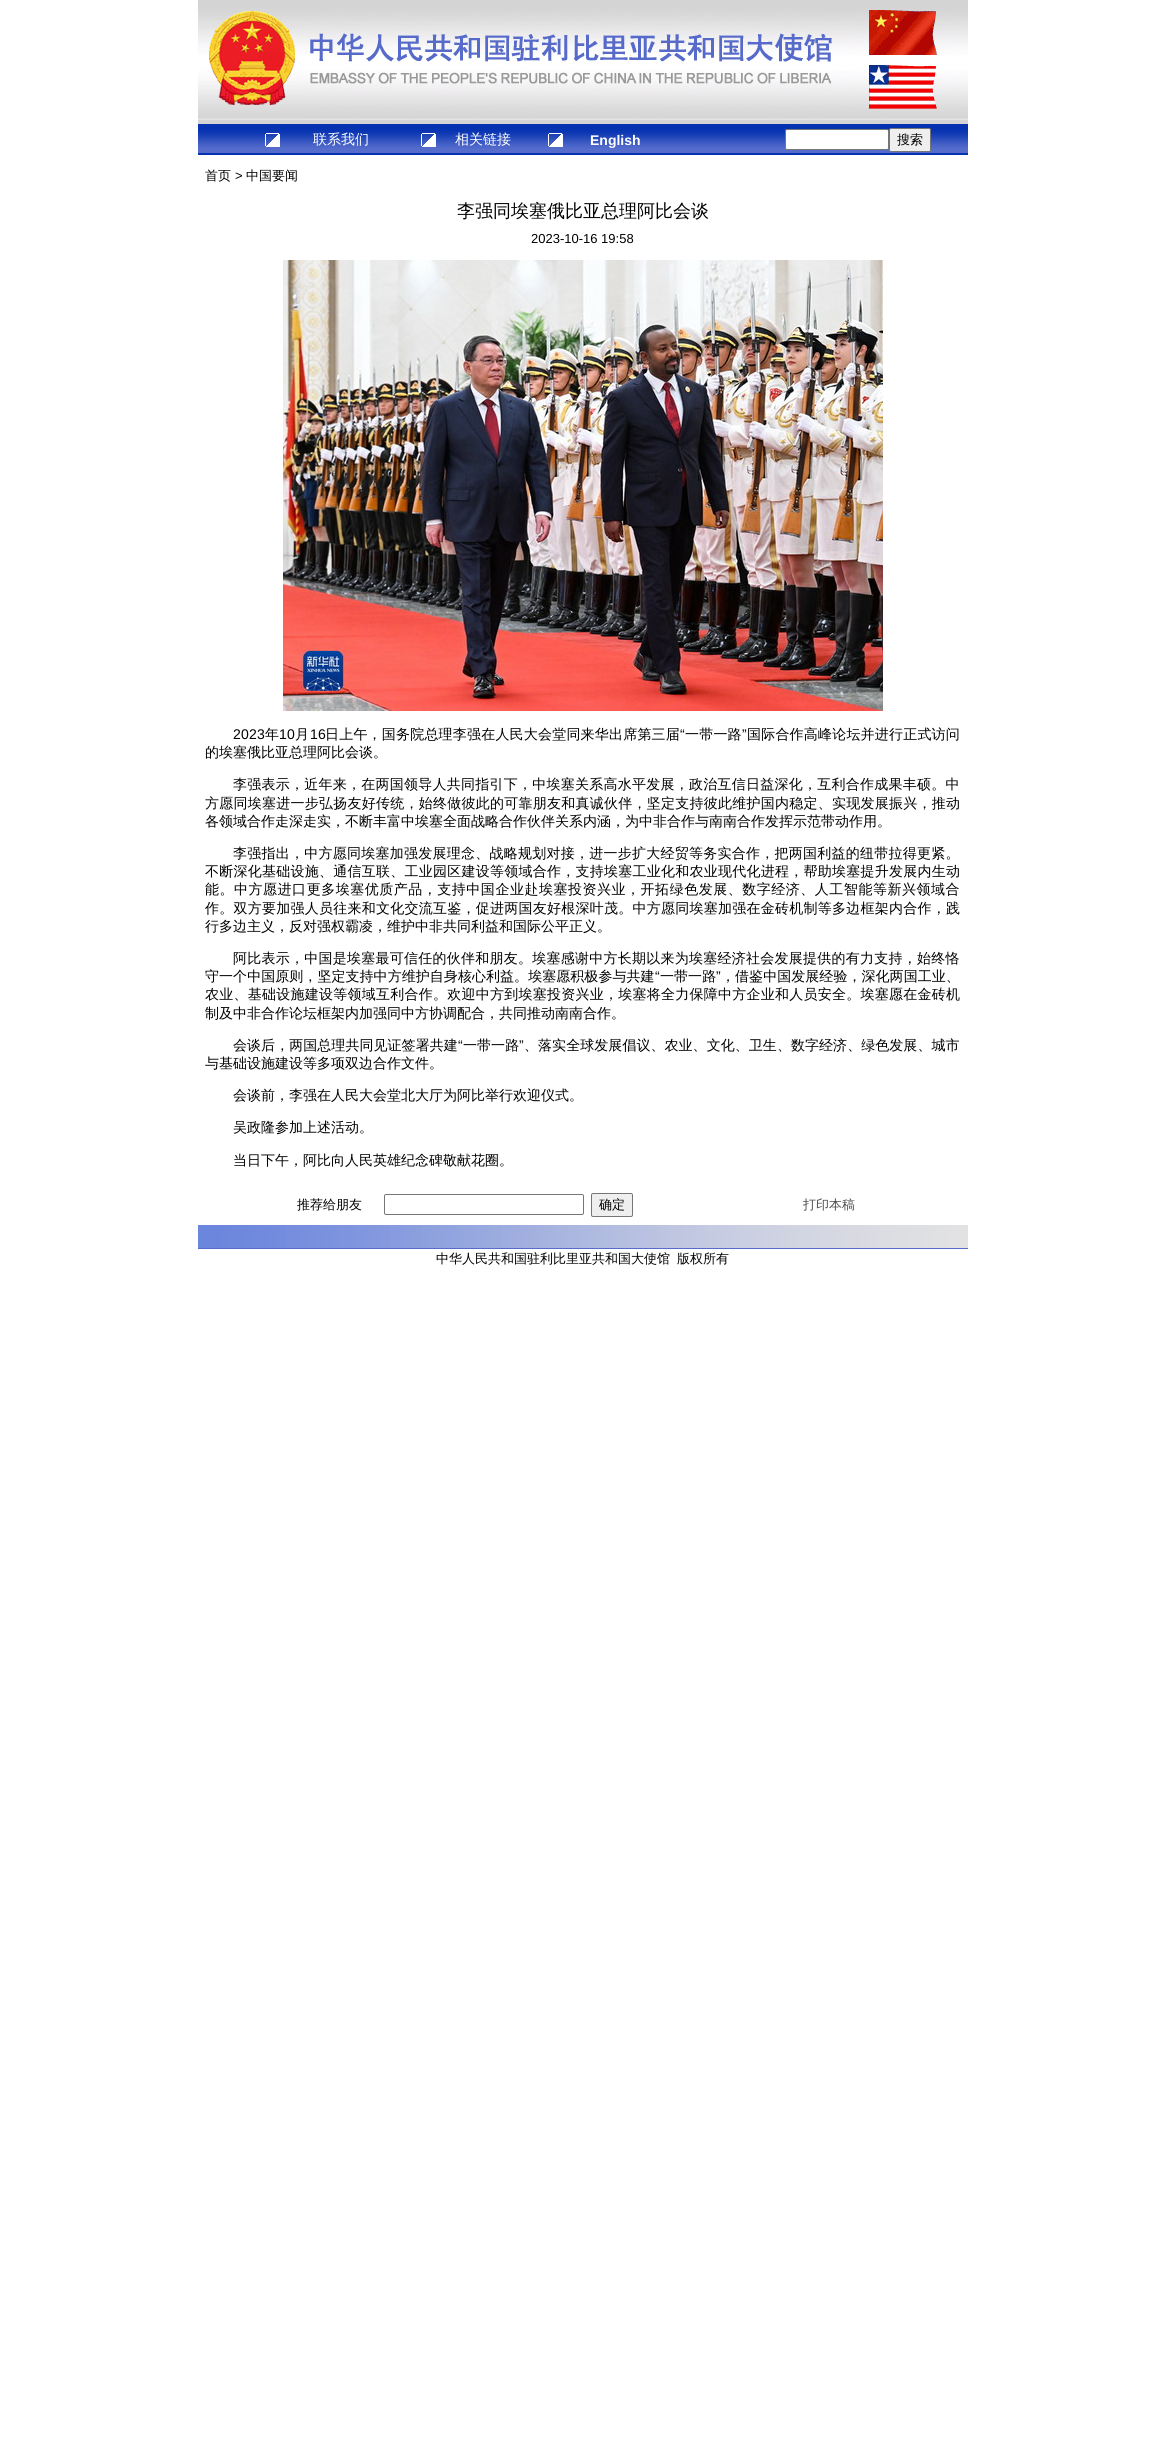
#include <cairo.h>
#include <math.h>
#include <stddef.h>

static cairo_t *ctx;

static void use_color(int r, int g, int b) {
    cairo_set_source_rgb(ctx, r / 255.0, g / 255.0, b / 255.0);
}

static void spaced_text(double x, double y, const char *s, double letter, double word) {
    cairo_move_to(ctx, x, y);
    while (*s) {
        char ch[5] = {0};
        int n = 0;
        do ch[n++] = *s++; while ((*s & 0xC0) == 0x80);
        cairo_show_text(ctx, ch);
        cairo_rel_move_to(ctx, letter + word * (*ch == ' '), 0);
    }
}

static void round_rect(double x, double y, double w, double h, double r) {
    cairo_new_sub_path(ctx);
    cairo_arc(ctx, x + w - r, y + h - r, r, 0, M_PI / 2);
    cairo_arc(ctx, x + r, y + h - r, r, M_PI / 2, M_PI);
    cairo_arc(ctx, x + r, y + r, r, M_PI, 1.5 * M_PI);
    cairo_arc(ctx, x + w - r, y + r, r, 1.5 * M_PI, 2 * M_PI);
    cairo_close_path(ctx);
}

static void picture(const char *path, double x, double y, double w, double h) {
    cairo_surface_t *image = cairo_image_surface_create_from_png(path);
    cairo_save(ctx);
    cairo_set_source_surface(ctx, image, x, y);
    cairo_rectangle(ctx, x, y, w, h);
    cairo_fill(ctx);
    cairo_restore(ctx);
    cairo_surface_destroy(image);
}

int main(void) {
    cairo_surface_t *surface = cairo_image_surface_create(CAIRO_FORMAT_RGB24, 1165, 2458);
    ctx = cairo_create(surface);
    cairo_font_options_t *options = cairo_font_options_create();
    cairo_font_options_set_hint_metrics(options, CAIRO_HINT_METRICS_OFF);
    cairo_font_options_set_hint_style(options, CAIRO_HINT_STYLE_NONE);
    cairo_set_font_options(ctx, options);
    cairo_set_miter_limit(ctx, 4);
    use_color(255, 255, 255);
    cairo_paint(ctx);
    picture("img1.png", 198, 0, 770, 124);
    picture("img2.png", 198, 124, 770, 31);
    picture("img3.png", 265, 133, 15, 14);
    cairo_select_font_face(ctx, "WenQuanYi Zen Hei Medium", CAIRO_FONT_SLANT_NORMAL, CAIRO_FONT_WEIGHT_NORMAL);
    cairo_set_font_size(ctx, 14);
    use_color(255, 255, 255);
    cairo_move_to(ctx, 313, 144);
    cairo_show_text(ctx, "联系我们");
    picture("img3.png", 421, 133, 15, 14);
    cairo_move_to(ctx, 455, 144);
    cairo_show_text(ctx, "相关链接");
    picture("img3.png", 548, 133, 15, 14);
    cairo_select_font_face(ctx, "Liberation Sans", CAIRO_FONT_SLANT_NORMAL, CAIRO_FONT_WEIGHT_BOLD);
    cairo_move_to(ctx, 590, 145);
    cairo_show_text(ctx, "English");
    round_rect(785.5, 129.5, 103, 20, 1.5);
    cairo_fill_preserve(ctx);
    use_color(118, 118, 118);
    cairo_set_line_width(ctx, 1);
    cairo_stroke(ctx);
    use_color(239, 239, 239);
    round_rect(889.5, 128.5, 41, 23, 1.5);
    cairo_fill_preserve(ctx);
    use_color(118, 118, 118);
    cairo_stroke(ctx);
    cairo_select_font_face(ctx, "WenQuanYi Zen Hei Medium", CAIRO_FONT_SLANT_NORMAL, CAIRO_FONT_WEIGHT_NORMAL);
    cairo_set_font_size(ctx, 13);
    use_color(0, 0, 0);
    cairo_move_to(ctx, 897, 144);
    cairo_show_text(ctx, "搜索");
    cairo_move_to(ctx, 205, 180);
    cairo_show_text(ctx, "首页");
    cairo_select_font_face(ctx, "Liberation Sans", CAIRO_FONT_SLANT_NORMAL, CAIRO_FONT_WEIGHT_NORMAL);
    cairo_move_to(ctx, 235, 180);
    cairo_show_text(ctx, ">");
    cairo_select_font_face(ctx, "WenQuanYi Zen Hei Medium", CAIRO_FONT_SLANT_NORMAL, CAIRO_FONT_WEIGHT_NORMAL);
    cairo_move_to(ctx, 246, 180);
    cairo_show_text(ctx, "中国要闻");
    cairo_set_font_size(ctx, 18);
    cairo_move_to(ctx, 457, 217);
    cairo_show_text(ctx, "李强同埃塞俄比亚总理阿比会谈");
    cairo_select_font_face(ctx, "Liberation Sans", CAIRO_FONT_SLANT_NORMAL, CAIRO_FONT_WEIGHT_NORMAL);
    cairo_set_font_size(ctx, 13);
    cairo_move_to(ctx, 531, 243);
    cairo_show_text(ctx, "2023-10-16 19:58");
    picture("img4.png", 283, 260, 600, 451);
    cairo_set_font_size(ctx, 14);
    spaced_text(233, 739, "2023", 0.2, 0);
    cairo_select_font_face(ctx, "WenQuanYi Zen Hei Medium", CAIRO_FONT_SLANT_NORMAL, CAIRO_FONT_WEIGHT_NORMAL);
    spaced_text(265, 739, "年", 0.2, 0);
    cairo_select_font_face(ctx, "Liberation Sans", CAIRO_FONT_SLANT_NORMAL, CAIRO_FONT_WEIGHT_NORMAL);
    spaced_text(279, 739, "10", 0.2, 0);
    cairo_select_font_face(ctx, "WenQuanYi Zen Hei Medium", CAIRO_FONT_SLANT_NORMAL, CAIRO_FONT_WEIGHT_NORMAL);
    spaced_text(295, 739, "月", 0.2, 0);
    cairo_select_font_face(ctx, "Liberation Sans", CAIRO_FONT_SLANT_NORMAL, CAIRO_FONT_WEIGHT_NORMAL);
    spaced_text(310, 739, "16", 0.2, 0);
    cairo_select_font_face(ctx, "WenQuanYi Zen Hei Medium", CAIRO_FONT_SLANT_NORMAL, CAIRO_FONT_WEIGHT_NORMAL);
    spaced_text(325, 739, "日上午，国务院总理李强在人民大会堂同来华出席第三届", 0.2, 0);
    cairo_select_font_face(ctx, "Liberation Sans", CAIRO_FONT_SLANT_NORMAL, CAIRO_FONT_WEIGHT_NORMAL);
    spaced_text(680, 739, "“", 0.2, 0);
    cairo_select_font_face(ctx, "WenQuanYi Zen Hei Medium", CAIRO_FONT_SLANT_NORMAL, CAIRO_FONT_WEIGHT_NORMAL);
    spaced_text(685, 739, "一带一路", 0.2, 0);
    cairo_select_font_face(ctx, "Liberation Sans", CAIRO_FONT_SLANT_NORMAL, CAIRO_FONT_WEIGHT_NORMAL);
    spaced_text(742, 739, "”", 0.2, 0);
    cairo_select_font_face(ctx, "WenQuanYi Zen Hei Medium", CAIRO_FONT_SLANT_NORMAL, CAIRO_FONT_WEIGHT_NORMAL);
    spaced_text(747, 739, "国际合作高峰论坛并进行正式访问", 0.2, 0);
    cairo_move_to(ctx, 205, 757);
    cairo_show_text(ctx, "的埃塞俄比亚总理阿比会谈。");
    spaced_text(233, 789, "李强表示，近年来，在两国领导人共同指引下，中埃塞关系高水平发展，政治互信日益深化，互利合作成果丰硕。中", 0.25, 0);
    spaced_text(205, 808, "方愿同埃塞进一步弘扬友好传统，始终做彼此的可靠朋友和真诚伙伴，坚定支持彼此维护国内稳定、实现发展振兴，推动", 0.25, 0);
    cairo_move_to(ctx, 205, 826);
    cairo_show_text(ctx, "各领域合作走深走实，不断丰富中埃塞全面战略合作伙伴关系内涵，为中非合作与南南合作发挥示范带动作用。");
    spaced_text(233, 858, "李强指出，中方愿同埃塞加强发展理念、战略规划对接，进一步扩大经贸等务实合作，把两国利益的纽带拉得更紧。", 0.25, 0);
    spaced_text(205, 876, "不断深化基础设施、通信互联、工业园区建设等领域合作，支持埃塞工业化和农业现代化进程，帮助埃塞提升发展内生动", 0.25, 0);
    spaced_text(205, 894, "能。中方愿进口更多埃塞优质产品，支持中国企业赴埃塞投资兴业，开拓绿色发展、数字经济、人工智能等新兴领域合", 0.52, 0);
    spaced_text(205, 913, "作。双方要加强人员往来和文化交流互鉴，促进两国友好根深叶茂。中方愿同埃塞加强在金砖机制等多边框架内合作，践", 0.25, 0);
    cairo_move_to(ctx, 205, 931);
    cairo_show_text(ctx, "行多边主义，反对强权霸凌，维护中非共同利益和国际公平正义。");
    spaced_text(233, 963, "阿比表示，中国是埃塞最可信任的伙伴和朋友。埃塞感谢中方长期以来为埃塞经济社会发展提供的有力支持，始终恪", 0.25, 0);
    spaced_text(205, 981, "守一个中国原则，坚定支持中方维护自身核心利益。埃塞愿积极参与共建", 0.05, 0);
    cairo_select_font_face(ctx, "Liberation Sans", CAIRO_FONT_SLANT_NORMAL, CAIRO_FONT_WEIGHT_NORMAL);
    spaced_text(655, 981, "“", 0.05, 0);
    cairo_select_font_face(ctx, "WenQuanYi Zen Hei Medium", CAIRO_FONT_SLANT_NORMAL, CAIRO_FONT_WEIGHT_NORMAL);
    spaced_text(660, 981, "一带一路", 0.05, 0);
    cairo_select_font_face(ctx, "Liberation Sans", CAIRO_FONT_SLANT_NORMAL, CAIRO_FONT_WEIGHT_NORMAL);
    spaced_text(716, 981, "”", 0.05, 0);
    cairo_select_font_face(ctx, "WenQuanYi Zen Hei Medium", CAIRO_FONT_SLANT_NORMAL, CAIRO_FONT_WEIGHT_NORMAL);
    spaced_text(721, 981, "，借鉴中国发展经验，深化两国工业、", 0.05, 0);
    spaced_text(205, 999, "农业、基础设施建设等领域互利合作。欢迎中方到埃塞投资兴业，埃塞将全力保障中方企业和人员安全。埃塞愿在金砖机", 0.25, 0);
    cairo_move_to(ctx, 205, 1018);
    cairo_show_text(ctx, "制及中非合作论坛框架内加强同中方协调配合，共同推动南南合作。");
    spaced_text(233, 1050, "会谈后，两国总理共同见证签署共建", 0.05, 0);
    cairo_select_font_face(ctx, "Liberation Sans", CAIRO_FONT_SLANT_NORMAL, CAIRO_FONT_WEIGHT_NORMAL);
    spaced_text(458, 1050, "“", 0.05, 0);
    cairo_select_font_face(ctx, "WenQuanYi Zen Hei Medium", CAIRO_FONT_SLANT_NORMAL, CAIRO_FONT_WEIGHT_NORMAL);
    spaced_text(463, 1050, "一带一路", 0.05, 0);
    cairo_select_font_face(ctx, "Liberation Sans", CAIRO_FONT_SLANT_NORMAL, CAIRO_FONT_WEIGHT_NORMAL);
    spaced_text(519, 1050, "”", 0.05, 0);
    cairo_select_font_face(ctx, "WenQuanYi Zen Hei Medium", CAIRO_FONT_SLANT_NORMAL, CAIRO_FONT_WEIGHT_NORMAL);
    spaced_text(524, 1050, "、落实全球发展倡议、农业、文化、卫生、数字经济、绿色发展、城市", 0.05, 0);
    cairo_move_to(ctx, 205, 1068);
    cairo_show_text(ctx, "与基础设施建设等多项双边合作文件。");
    cairo_move_to(ctx, 233, 1100);
    cairo_show_text(ctx, "会谈前，李强在人民大会堂北大厅为阿比举行欢迎仪式。");
    cairo_move_to(ctx, 233, 1132);
    cairo_show_text(ctx, "吴政隆参加上述活动。");
    cairo_move_to(ctx, 233, 1165);
    cairo_show_text(ctx, "当日下午，阿比向人民英雄纪念碑敬献花圈。");
    cairo_set_font_size(ctx, 13);
    cairo_move_to(ctx, 297, 1209);
    cairo_show_text(ctx, "推荐给朋友");
    round_rect(384.5, 1194.5, 199, 20, 1.5);
    use_color(118, 118, 118);
    cairo_stroke(ctx);
    use_color(239, 239, 239);
    round_rect(591.5, 1193.5, 41, 23, 1.5);
    cairo_fill_preserve(ctx);
    use_color(118, 118, 118);
    cairo_stroke(ctx);
    use_color(0, 0, 0);
    cairo_move_to(ctx, 599, 1209);
    cairo_show_text(ctx, "确定");
    use_color(77, 77, 77);
    cairo_move_to(ctx, 803, 1209);
    cairo_show_text(ctx, "打印本稿");
    use_color(85, 108, 204);
    cairo_rectangle(ctx, 198, 1248, 770, 1);
    cairo_fill(ctx);
    picture("img5.png", 198, 1225, 770, 23);
    use_color(0, 0, 0);
    cairo_move_to(ctx, 436, 1263);
    cairo_show_text(ctx, "中华人民共和国驻利比里亚共和国大使馆");
    cairo_move_to(ctx, 677, 1263);
    cairo_show_text(ctx, "版权所有");
    cairo_surface_write_to_png(surface, "result.png");
    cairo_font_options_destroy(options);
    cairo_destroy(ctx);
    cairo_surface_destroy(surface);
    return 0;
}
